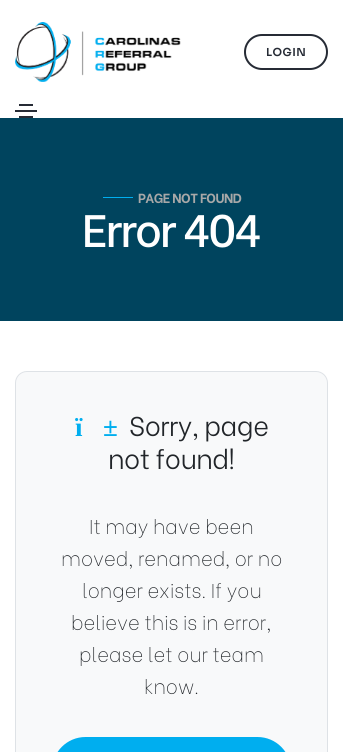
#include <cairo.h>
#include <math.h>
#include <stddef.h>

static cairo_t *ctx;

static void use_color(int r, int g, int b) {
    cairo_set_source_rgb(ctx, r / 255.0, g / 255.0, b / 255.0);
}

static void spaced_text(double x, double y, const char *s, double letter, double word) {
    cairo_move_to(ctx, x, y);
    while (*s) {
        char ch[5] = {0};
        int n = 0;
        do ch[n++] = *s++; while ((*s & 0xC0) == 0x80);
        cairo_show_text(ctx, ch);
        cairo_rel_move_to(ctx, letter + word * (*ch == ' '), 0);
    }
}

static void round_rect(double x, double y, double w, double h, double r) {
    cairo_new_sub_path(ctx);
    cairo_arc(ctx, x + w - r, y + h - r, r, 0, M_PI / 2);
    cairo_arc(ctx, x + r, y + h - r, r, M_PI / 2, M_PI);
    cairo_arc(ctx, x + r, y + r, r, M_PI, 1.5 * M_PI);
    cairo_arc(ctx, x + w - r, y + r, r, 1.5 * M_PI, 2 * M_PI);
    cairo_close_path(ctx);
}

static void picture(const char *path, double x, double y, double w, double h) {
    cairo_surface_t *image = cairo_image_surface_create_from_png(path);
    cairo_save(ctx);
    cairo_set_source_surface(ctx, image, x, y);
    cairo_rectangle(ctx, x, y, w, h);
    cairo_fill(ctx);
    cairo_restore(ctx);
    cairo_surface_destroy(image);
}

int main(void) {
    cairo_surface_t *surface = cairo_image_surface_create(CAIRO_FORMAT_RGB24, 343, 752);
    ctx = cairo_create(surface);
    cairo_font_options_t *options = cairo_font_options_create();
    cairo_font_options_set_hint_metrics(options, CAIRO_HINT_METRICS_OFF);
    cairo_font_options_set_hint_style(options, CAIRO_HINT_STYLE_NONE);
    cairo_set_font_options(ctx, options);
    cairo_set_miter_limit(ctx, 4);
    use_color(255, 255, 255);
    cairo_paint(ctx);
    picture("img1.png", 15, 22, 166, 60);
    round_rect(245, 35, 82, 34, 17);
    use_color(38, 43, 53);
    cairo_stroke(ctx);
    cairo_select_font_face(ctx, "Sora SemiBold", CAIRO_FONT_SLANT_NORMAL, CAIRO_FONT_WEIGHT_NORMAL);
    cairo_set_font_size(ctx, 11);
    spaced_text(266, 56, "LOGIN", 0.5, 0);
    cairo_rectangle(ctx, 19, 104, 14, 2);
    cairo_fill(ctx);
    cairo_rectangle(ctx, 15, 110, 22, 2);
    cairo_fill(ctx);
    cairo_rectangle(ctx, 19, 116, 14, 2);
    cairo_fill(ctx);
    use_color(0, 68, 94);
    cairo_rectangle(ctx, 0, 118, 343, 203);
    cairo_fill(ctx);
    use_color(0, 174, 239);
    cairo_rectangle(ctx, 103, 197, 30, 1);
    cairo_fill(ctx);
    cairo_select_font_face(ctx, "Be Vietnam", CAIRO_FONT_SLANT_NORMAL, CAIRO_FONT_WEIGHT_BOLD);
    cairo_set_font_size(ctx, 13.25);
    use_color(168, 168, 168);
    spaced_text(138, 203, "PAGE NOT FOUND", -0.5, 0);
    cairo_select_font_face(ctx, "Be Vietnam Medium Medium", CAIRO_FONT_SLANT_NORMAL, CAIRO_FONT_WEIGHT_NORMAL);
    cairo_set_font_size(ctx, 45.5);
    use_color(255, 255, 255);
    spaced_text(82, 247, "Error 404", -2, 0);
    use_color(248, 249, 250);
    round_rect(15.5, 371.5, 312, 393, 11.5);
    cairo_fill_preserve(ctx);
    use_color(222, 226, 230);
    cairo_set_line_width(ctx, 1);
    cairo_stroke(ctx);
    cairo_select_font_face(ctx, "Liberation Serif", CAIRO_FONT_SLANT_NORMAL, CAIRO_FONT_WEIGHT_BOLD);
    cairo_set_font_size(ctx, 27);
    use_color(0, 174, 239);
    spaced_text(75, 436, "ï", -0.5, 0);
    spaced_text(103, 436, "±", -0.5, 0);
    cairo_select_font_face(ctx, "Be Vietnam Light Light", CAIRO_FONT_SLANT_NORMAL, CAIRO_FONT_WEIGHT_NORMAL);
    use_color(33, 37, 41);
    spaced_text(129, 436, "Sorry, page", -0.5, 0);
    spaced_text(108, 469, "not found!", -0.5, 0);
    cairo_select_font_face(ctx, "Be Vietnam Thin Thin", CAIRO_FONT_SLANT_NORMAL, CAIRO_FONT_WEIGHT_NORMAL);
    cairo_set_font_size(ctx, 20);
    cairo_move_to(ctx, 89, 534);
    cairo_show_text(ctx, "It may have been");
    cairo_move_to(ctx, 61, 566);
    cairo_show_text(ctx, "moved, renamed, or no");
    cairo_move_to(ctx, 82, 598);
    cairo_show_text(ctx, "longer exists. If you");
    cairo_move_to(ctx, 71, 630);
    cairo_show_text(ctx, "believe this is in error,");
    cairo_move_to(ctx, 79, 662);
    cairo_show_text(ctx, "please let our team");
    cairo_move_to(ctx, 144, 694);
    cairo_show_text(ctx, "know.");
    use_color(0, 174, 239);
    round_rect(52, 737, 239, 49, 33.5);
    cairo_fill(ctx);
    cairo_surface_write_to_png(surface, "result.png");
    cairo_font_options_destroy(options);
    cairo_destroy(ctx);
    cairo_surface_destroy(surface);
    return 0;
}
